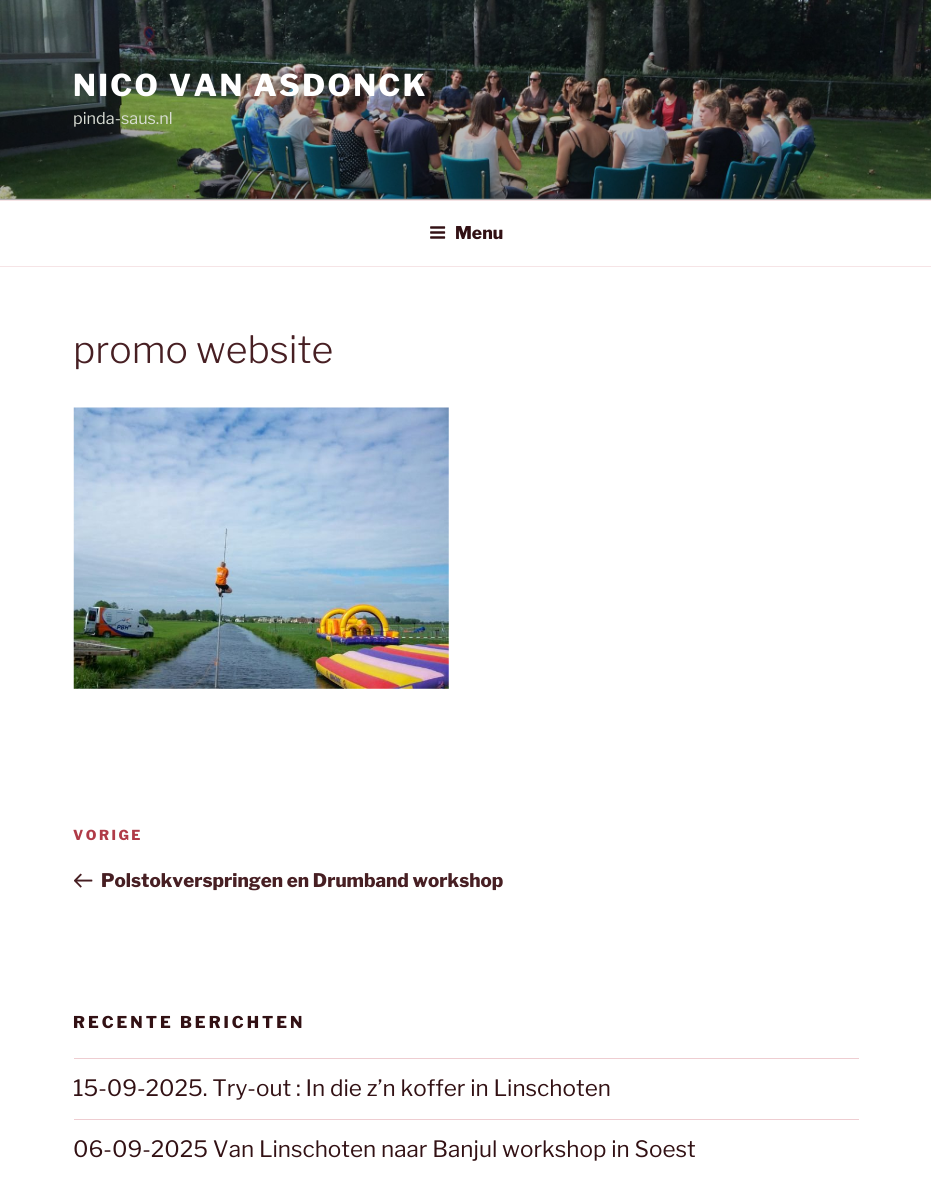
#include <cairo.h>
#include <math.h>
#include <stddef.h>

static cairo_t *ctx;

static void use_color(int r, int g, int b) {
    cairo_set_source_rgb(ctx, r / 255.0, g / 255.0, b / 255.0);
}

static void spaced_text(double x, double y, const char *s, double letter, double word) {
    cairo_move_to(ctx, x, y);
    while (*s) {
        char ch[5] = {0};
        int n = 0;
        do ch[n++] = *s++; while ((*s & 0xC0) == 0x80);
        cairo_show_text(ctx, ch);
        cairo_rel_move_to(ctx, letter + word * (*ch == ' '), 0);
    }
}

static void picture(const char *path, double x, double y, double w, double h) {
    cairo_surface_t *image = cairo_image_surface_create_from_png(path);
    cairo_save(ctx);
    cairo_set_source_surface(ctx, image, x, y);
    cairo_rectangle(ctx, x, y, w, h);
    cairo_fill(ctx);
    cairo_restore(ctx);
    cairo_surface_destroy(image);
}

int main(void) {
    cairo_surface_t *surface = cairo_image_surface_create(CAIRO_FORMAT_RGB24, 931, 1180);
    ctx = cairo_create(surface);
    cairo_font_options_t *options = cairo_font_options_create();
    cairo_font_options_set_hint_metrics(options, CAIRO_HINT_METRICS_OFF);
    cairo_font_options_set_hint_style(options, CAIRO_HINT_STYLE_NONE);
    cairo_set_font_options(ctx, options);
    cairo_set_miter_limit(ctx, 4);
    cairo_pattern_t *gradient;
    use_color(255, 255, 255);
    cairo_paint(ctx);
    use_color(252, 247, 248);
    cairo_rectangle(ctx, 0, 198, 931, 2);
    cairo_fill(ctx);
    picture("img1.png", 0, 0, 931, 199);
    gradient = cairo_pattern_create_linear(466, 0, 466, 200);
    cairo_pattern_add_color_stop_rgba(gradient, 0, 0, 0, 0, 0);
    cairo_pattern_add_color_stop_rgba(gradient, 0.75, 0, 0, 0, 0.3);
    cairo_pattern_add_color_stop_rgba(gradient, 1, 0, 0, 0, 0.3);
    cairo_set_source(ctx, gradient);
    cairo_pattern_destroy(gradient);
    cairo_rectangle(ctx, 0, 11, 931, 189);
    cairo_fill(ctx);
    cairo_select_font_face(ctx, "Libre Franklin Thin", CAIRO_FONT_SLANT_NORMAL, CAIRO_FONT_WEIGHT_NORMAL);
    cairo_set_font_size(ctx, 30);
    use_color(255, 255, 255);
    spaced_text(73, 96, "NICO VAN ASDONCK", 2.4, 0);
    cairo_select_font_face(ctx, "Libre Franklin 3 Thin", CAIRO_FONT_SLANT_NORMAL, CAIRO_FONT_WEIGHT_NORMAL);
    cairo_set_font_size(ctx, 16.25);
    use_color(217, 221, 212);
    cairo_move_to(ctx, 73, 124);
    cairo_show_text(ctx, "pinda-saus.nl");
    use_color(246, 228, 230);
    cairo_rectangle(ctx, 0, 200, 931, 1);
    cairo_fill(ctx);
    cairo_rectangle(ctx, 0, 266, 931, 1);
    cairo_fill(ctx);
    picture("img2.png", 430, 226, 16, 13);
    cairo_select_font_face(ctx, "Libre Franklin Thin", CAIRO_FONT_SLANT_NORMAL, CAIRO_FONT_WEIGHT_NORMAL);
    cairo_set_font_size(ctx, 17.5);
    use_color(50, 17, 20);
    cairo_move_to(ctx, 455, 239);
    cairo_show_text(ctx, "Menu");
    cairo_select_font_face(ctx, "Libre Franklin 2 Thin", CAIRO_FONT_SLANT_NORMAL, CAIRO_FONT_WEIGHT_NORMAL);
    cairo_set_font_size(ctx, 37.5);
    use_color(71, 31, 35);
    cairo_move_to(ctx, 73, 363);
    cairo_show_text(ctx, "promo website");
    picture("img3.png", 73, 407, 376, 282);
    cairo_select_font_face(ctx, "Libre Franklin Thin", CAIRO_FONT_SLANT_NORMAL, CAIRO_FONT_WEIGHT_NORMAL);
    cairo_set_font_size(ctx, 13.75);
    use_color(176, 59, 72);
    spaced_text(73, 840, "VORIGE", 2.5, 0);
    picture("img4.png", 74, 873, 19, 15);
    cairo_set_font_size(ctx, 18.75);
    use_color(71, 31, 35);
    cairo_move_to(ctx, 101, 887);
    cairo_show_text(ctx, "Polstokverspringen en Drumband workshop");
    cairo_set_font_size(ctx, 16.25);
    use_color(50, 17, 20);
    spaced_text(73, 1028, "RECENTE BERICHTEN", 3, 0);
    use_color(238, 205, 209);
    cairo_rectangle(ctx, 74, 1058, 785, 1);
    cairo_fill(ctx);
    cairo_rectangle(ctx, 74, 1119, 785, 1);
    cairo_fill(ctx);
    cairo_select_font_face(ctx, "Libre Franklin 3 Thin", CAIRO_FONT_SLANT_NORMAL, CAIRO_FONT_WEIGHT_NORMAL);
    cairo_set_font_size(ctx, 22.5);
    use_color(50, 17, 20);
    cairo_move_to(ctx, 73, 1096);
    cairo_show_text(ctx, "15-09-2025. Try-out : In die z’n koffer in Linschoten");
    cairo_move_to(ctx, 73, 1157);
    cairo_show_text(ctx, "06-09-2025 Van Linschoten naar Banjul workshop in Soest");
    cairo_surface_write_to_png(surface, "result.png");
    cairo_font_options_destroy(options);
    cairo_destroy(ctx);
    cairo_surface_destroy(surface);
    return 0;
}
